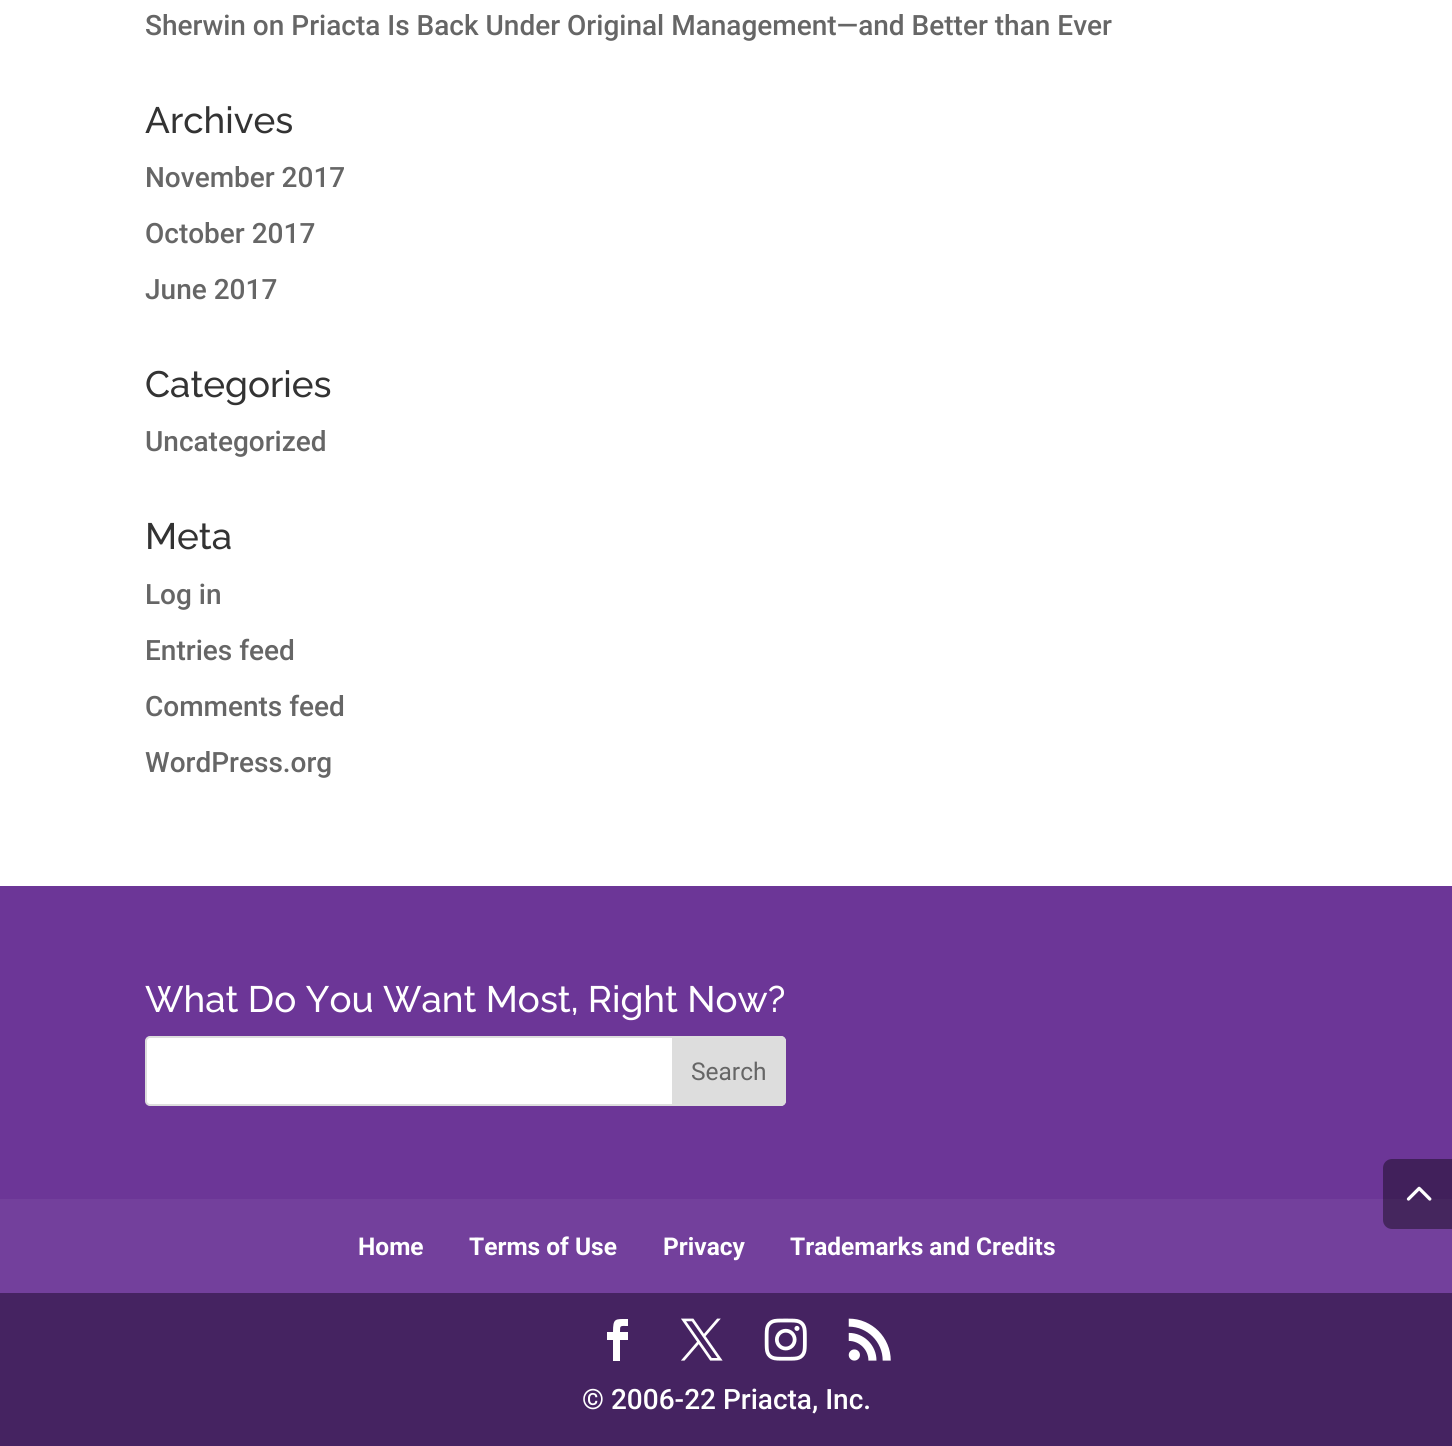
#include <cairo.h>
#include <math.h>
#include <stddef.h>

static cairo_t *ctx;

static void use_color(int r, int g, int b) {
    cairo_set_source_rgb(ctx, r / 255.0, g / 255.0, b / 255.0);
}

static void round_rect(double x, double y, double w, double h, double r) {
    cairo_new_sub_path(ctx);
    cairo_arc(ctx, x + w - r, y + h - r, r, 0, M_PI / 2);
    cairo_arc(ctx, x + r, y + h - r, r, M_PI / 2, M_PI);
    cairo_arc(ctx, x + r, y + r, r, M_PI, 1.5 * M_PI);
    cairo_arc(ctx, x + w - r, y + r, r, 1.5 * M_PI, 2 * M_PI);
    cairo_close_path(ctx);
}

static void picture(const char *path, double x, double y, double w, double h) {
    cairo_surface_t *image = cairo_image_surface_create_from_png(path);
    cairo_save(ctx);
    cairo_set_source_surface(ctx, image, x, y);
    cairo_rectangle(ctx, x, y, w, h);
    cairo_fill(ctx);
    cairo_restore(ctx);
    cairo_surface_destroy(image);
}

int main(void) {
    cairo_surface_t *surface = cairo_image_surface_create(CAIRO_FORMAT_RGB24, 1452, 1446);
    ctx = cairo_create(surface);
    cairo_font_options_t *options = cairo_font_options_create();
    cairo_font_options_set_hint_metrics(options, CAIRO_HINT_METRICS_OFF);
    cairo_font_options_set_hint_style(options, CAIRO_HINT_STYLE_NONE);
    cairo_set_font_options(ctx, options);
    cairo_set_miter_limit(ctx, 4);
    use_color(255, 255, 255);
    cairo_paint(ctx);
    cairo_select_font_face(ctx, "Roboto Medium", CAIRO_FONT_SLANT_NORMAL, CAIRO_FONT_WEIGHT_NORMAL);
    cairo_set_font_size(ctx, 28);
    use_color(102, 102, 102);
    cairo_move_to(ctx, 145, 35);
    cairo_show_text(ctx, "Sherwin on Priacta Is Back Under Original Management—and Better than Ever");
    cairo_select_font_face(ctx, "Raleway Medium", CAIRO_FONT_SLANT_NORMAL, CAIRO_FONT_WEIGHT_NORMAL);
    cairo_set_font_size(ctx, 36.75);
    use_color(51, 51, 51);
    cairo_move_to(ctx, 145, 133);
    cairo_show_text(ctx, "Archives");
    cairo_select_font_face(ctx, "Roboto Medium", CAIRO_FONT_SLANT_NORMAL, CAIRO_FONT_WEIGHT_NORMAL);
    cairo_set_font_size(ctx, 28);
    use_color(102, 102, 102);
    cairo_move_to(ctx, 145, 187);
    cairo_show_text(ctx, "November 2017");
    cairo_move_to(ctx, 145, 243);
    cairo_show_text(ctx, "October 2017");
    cairo_move_to(ctx, 145, 299);
    cairo_show_text(ctx, "June 2017");
    cairo_select_font_face(ctx, "Raleway Medium", CAIRO_FONT_SLANT_NORMAL, CAIRO_FONT_WEIGHT_NORMAL);
    cairo_set_font_size(ctx, 36.75);
    use_color(51, 51, 51);
    cairo_move_to(ctx, 145, 397);
    cairo_show_text(ctx, "Categories");
    cairo_select_font_face(ctx, "Roboto Medium", CAIRO_FONT_SLANT_NORMAL, CAIRO_FONT_WEIGHT_NORMAL);
    cairo_set_font_size(ctx, 28);
    use_color(102, 102, 102);
    cairo_move_to(ctx, 145, 451);
    cairo_show_text(ctx, "Uncategorized");
    cairo_select_font_face(ctx, "Raleway Medium", CAIRO_FONT_SLANT_NORMAL, CAIRO_FONT_WEIGHT_NORMAL);
    cairo_set_font_size(ctx, 36.75);
    use_color(51, 51, 51);
    cairo_move_to(ctx, 145, 549);
    cairo_show_text(ctx, "Meta");
    cairo_select_font_face(ctx, "Roboto Medium", CAIRO_FONT_SLANT_NORMAL, CAIRO_FONT_WEIGHT_NORMAL);
    cairo_set_font_size(ctx, 28);
    use_color(102, 102, 102);
    cairo_move_to(ctx, 145, 604);
    cairo_show_text(ctx, "Log in");
    cairo_move_to(ctx, 145, 660);
    cairo_show_text(ctx, "Entries feed");
    cairo_move_to(ctx, 145, 716);
    cairo_show_text(ctx, "Comments feed");
    cairo_move_to(ctx, 145, 772);
    cairo_show_text(ctx, "WordPress.org");
    use_color(108, 54, 151);
    cairo_rectangle(ctx, 0, 886, 1452, 313);
    cairo_fill(ctx);
    cairo_select_font_face(ctx, "Raleway Medium", CAIRO_FONT_SLANT_NORMAL, CAIRO_FONT_WEIGHT_NORMAL);
    cairo_set_font_size(ctx, 36.75);
    use_color(255, 255, 255);
    cairo_move_to(ctx, 145, 1012);
    cairo_show_text(ctx, "What Do You Want Most, Right Now?");
    round_rect(146, 1037, 639, 68, 4);
    cairo_fill_preserve(ctx);
    use_color(221, 221, 221);
    cairo_stroke(ctx);
    cairo_new_path(ctx);
    cairo_move_to(ctx, 673, 1037);
    cairo_line_to(ctx, 781, 1037);
    cairo_curve_to(ctx, 783, 1037, 785, 1039, 785, 1041);
    cairo_line_to(ctx, 785, 1101);
    cairo_curve_to(ctx, 785, 1103, 783, 1105, 781, 1105);
    cairo_line_to(ctx, 673, 1105);
    cairo_close_path(ctx);
    cairo_fill_preserve(ctx);
    cairo_stroke(ctx);
    cairo_select_font_face(ctx, "Roboto", CAIRO_FONT_SLANT_NORMAL, CAIRO_FONT_WEIGHT_NORMAL);
    cairo_set_font_size(ctx, 24.5);
    use_color(102, 102, 102);
    cairo_move_to(ctx, 691, 1080);
    cairo_show_text(ctx, "Search");
    use_color(115, 64, 156);
    cairo_rectangle(ctx, 0, 1199, 1452, 94);
    cairo_fill(ctx);
    cairo_select_font_face(ctx, "Roboto", CAIRO_FONT_SLANT_NORMAL, CAIRO_FONT_WEIGHT_BOLD);
    use_color(255, 255, 255);
    cairo_move_to(ctx, 358, 1255);
    cairo_show_text(ctx, "Home");
    cairo_move_to(ctx, 469, 1255);
    cairo_show_text(ctx, "Terms of Use");
    cairo_move_to(ctx, 663, 1255);
    cairo_show_text(ctx, "Privacy");
    cairo_move_to(ctx, 790, 1255);
    cairo_show_text(ctx, "Trademarks and Credits");
    use_color(69, 35, 97);
    cairo_rectangle(ctx, 0, 1293, 1452, 153);
    cairo_fill(ctx);
    use_color(255, 255, 255);
    cairo_new_path(ctx);
    cairo_move_to(ctx, 613, 1361);
    cairo_line_to(ctx, 620, 1361);
    cairo_line_to(ctx, 620, 1340);
    cairo_line_to(ctx, 628, 1340);
    cairo_line_to(ctx, 628, 1332);
    cairo_line_to(ctx, 620, 1332);
    cairo_curve_to(ctx, 620, 1325, 620, 1326, 628, 1326);
    cairo_line_to(ctx, 628, 1319);
    cairo_curve_to(ctx, 615, 1319, 613, 1318, 613, 1332);
    cairo_line_to(ctx, 607, 1332);
    cairo_line_to(ctx, 607, 1340);
    cairo_line_to(ctx, 613, 1340);
    cairo_close_path(ctx);
    cairo_fill(ctx);
    picture("img1.png", 681, 1318, 42, 43);
    picture("img2.png", 764, 1318, 43, 43);
    picture("img3.png", 848, 1318, 43, 43);
    cairo_select_font_face(ctx, "Roboto Medium", CAIRO_FONT_SLANT_NORMAL, CAIRO_FONT_WEIGHT_NORMAL);
    cairo_set_font_size(ctx, 28);
    cairo_move_to(ctx, 582, 1409);
    cairo_show_text(ctx, "© 2006-22 Priacta, Inc.");
    cairo_set_source_rgba(ctx, 0, 0, 0, 0.4);
    cairo_new_path(ctx);
    cairo_move_to(ctx, 1392, 1159);
    cairo_line_to(ctx, 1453, 1159);
    cairo_line_to(ctx, 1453, 1229);
    cairo_line_to(ctx, 1392, 1229);
    cairo_curve_to(ctx, 1387, 1229, 1383, 1225, 1383, 1220);
    cairo_line_to(ctx, 1383, 1168);
    cairo_curve_to(ctx, 1383, 1163, 1387, 1159, 1392, 1159);
    cairo_close_path(ctx);
    cairo_fill(ctx);
    picture("img4.png", 1406, 1186, 26, 15);
    cairo_surface_write_to_png(surface, "result.png");
    cairo_font_options_destroy(options);
    cairo_destroy(ctx);
    cairo_surface_destroy(surface);
    return 0;
}
